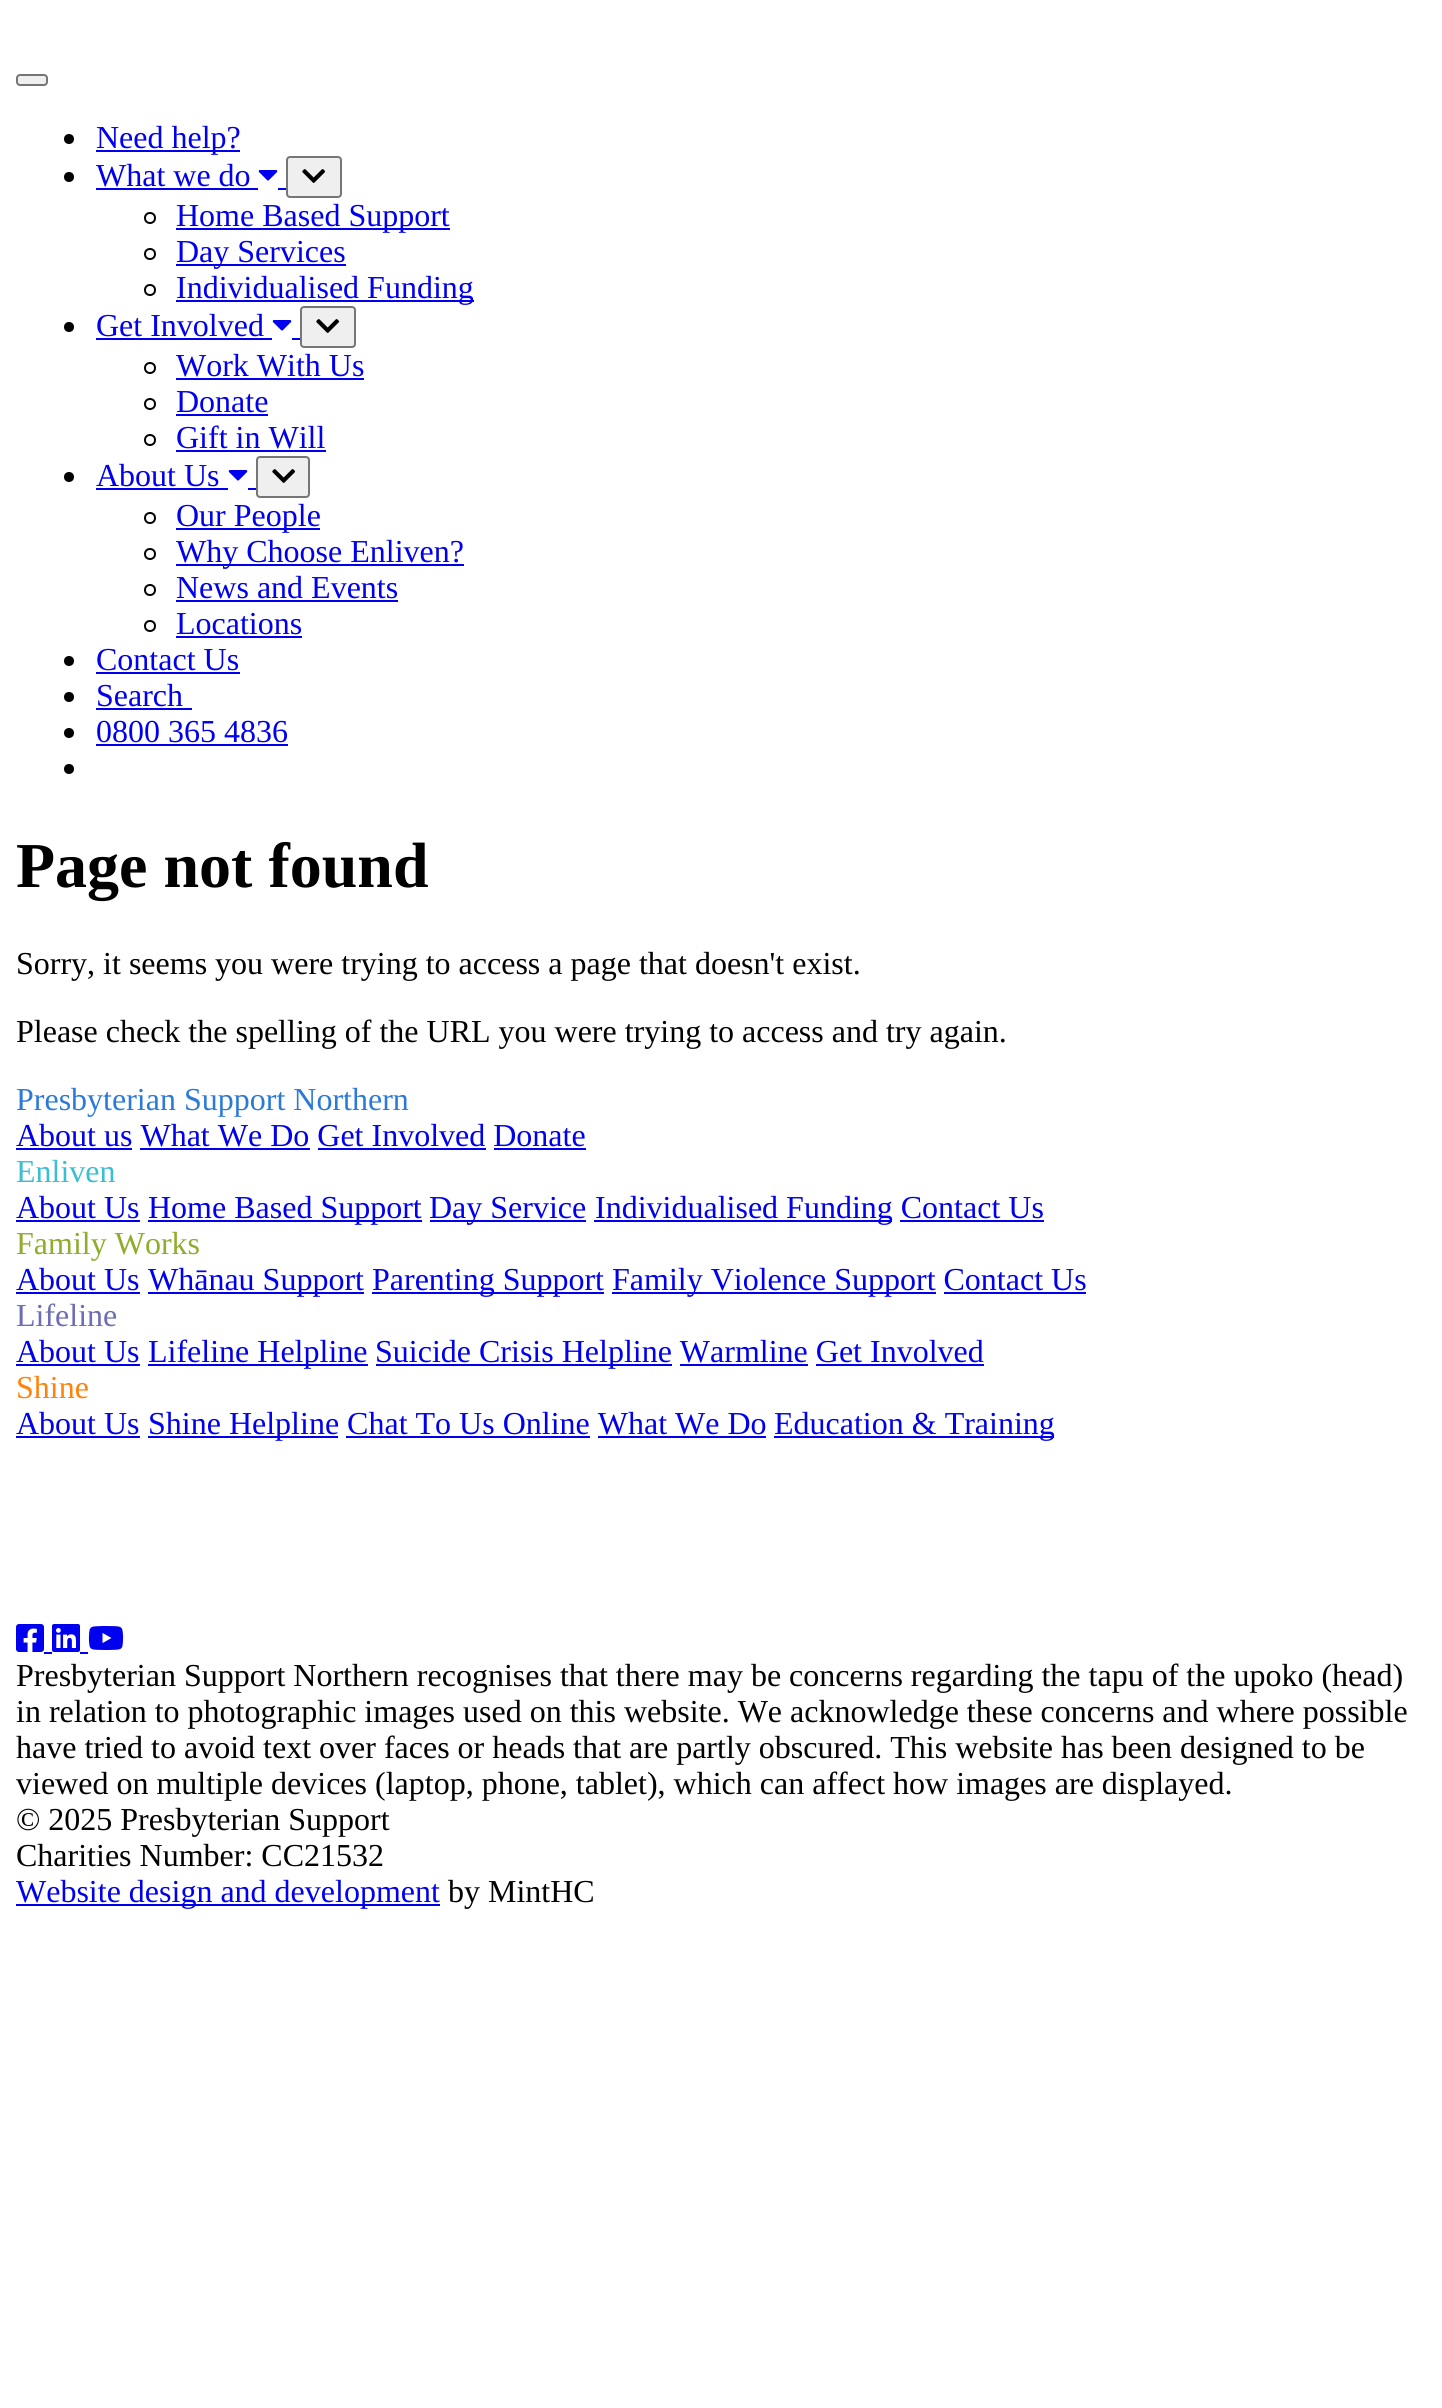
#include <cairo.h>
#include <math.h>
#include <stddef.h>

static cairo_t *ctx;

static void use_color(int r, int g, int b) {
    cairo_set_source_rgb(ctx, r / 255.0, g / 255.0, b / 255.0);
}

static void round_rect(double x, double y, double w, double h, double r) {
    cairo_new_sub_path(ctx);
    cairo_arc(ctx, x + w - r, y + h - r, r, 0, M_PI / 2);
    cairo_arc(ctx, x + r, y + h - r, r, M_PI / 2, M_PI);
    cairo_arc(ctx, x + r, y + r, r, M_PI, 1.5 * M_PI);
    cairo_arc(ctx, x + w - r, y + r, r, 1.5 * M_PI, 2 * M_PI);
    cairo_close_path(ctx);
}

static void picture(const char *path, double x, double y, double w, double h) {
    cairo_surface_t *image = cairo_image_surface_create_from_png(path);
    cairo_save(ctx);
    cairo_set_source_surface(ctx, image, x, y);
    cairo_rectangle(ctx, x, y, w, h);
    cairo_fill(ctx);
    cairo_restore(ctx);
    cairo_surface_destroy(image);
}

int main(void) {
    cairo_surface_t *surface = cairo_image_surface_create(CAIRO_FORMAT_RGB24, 1442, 2408);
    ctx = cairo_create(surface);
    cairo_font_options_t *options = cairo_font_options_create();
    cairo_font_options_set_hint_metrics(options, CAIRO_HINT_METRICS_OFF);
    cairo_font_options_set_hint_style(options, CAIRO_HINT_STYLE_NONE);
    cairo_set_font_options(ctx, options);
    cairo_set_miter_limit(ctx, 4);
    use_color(255, 255, 255);
    cairo_paint(ctx);
    use_color(239, 239, 239);
    round_rect(17, 75, 30, 10, 3);
    cairo_fill_preserve(ctx);
    use_color(118, 118, 118);
    cairo_stroke(ctx);
    use_color(0, 0, 0);
    cairo_arc(ctx, 69, 139, 5, 0, 2 * M_PI);
    cairo_fill(ctx);
    use_color(0, 0, 238);
    cairo_rectangle(ctx, 96, 150, 144, 2);
    cairo_fill(ctx);
    cairo_select_font_face(ctx, "Liberation Serif", CAIRO_FONT_SLANT_NORMAL, CAIRO_FONT_WEIGHT_NORMAL);
    cairo_set_font_size(ctx, 32);
    cairo_move_to(ctx, 96, 148);
    cairo_show_text(ctx, "Need help?");
    use_color(0, 0, 0);
    cairo_new_path(ctx);
    cairo_arc(ctx, 69, 177, 5, 0, 2 * M_PI);
    cairo_fill(ctx);
    use_color(0, 0, 238);
    cairo_move_to(ctx, 96, 186);
    cairo_show_text(ctx, "What we do");
    cairo_rectangle(ctx, 96, 188, 162, 2);
    cairo_fill(ctx);
    picture("img1.png", 258, 170, 20, 11);
    cairo_rectangle(ctx, 278, 188, 8, 2);
    cairo_fill(ctx);
    use_color(239, 239, 239);
    round_rect(287, 157, 54, 40, 3);
    cairo_fill_preserve(ctx);
    use_color(118, 118, 118);
    cairo_stroke(ctx);
    picture("img2.png", 302, 169, 23, 14);
    cairo_arc(ctx, 150, 218, 5, 0, 2 * M_PI);
    use_color(0, 0, 0);
    cairo_stroke(ctx);
    use_color(0, 0, 238);
    cairo_rectangle(ctx, 176, 228, 274, 2);
    cairo_fill(ctx);
    cairo_move_to(ctx, 176, 226);
    cairo_show_text(ctx, "Home Based Support");
    cairo_new_path(ctx);
    cairo_arc(ctx, 150, 254, 5, 0, 2 * M_PI);
    use_color(0, 0, 0);
    cairo_stroke(ctx);
    use_color(0, 0, 238);
    cairo_rectangle(ctx, 176, 264, 170, 2);
    cairo_fill(ctx);
    cairo_move_to(ctx, 176, 262);
    cairo_show_text(ctx, "Day Services");
    cairo_new_path(ctx);
    cairo_arc(ctx, 150, 290, 5, 0, 2 * M_PI);
    use_color(0, 0, 0);
    cairo_stroke(ctx);
    use_color(0, 0, 238);
    cairo_rectangle(ctx, 176, 300, 298, 2);
    cairo_fill(ctx);
    cairo_move_to(ctx, 176, 298);
    cairo_show_text(ctx, "Individualised Funding");
    use_color(0, 0, 0);
    cairo_new_path(ctx);
    cairo_arc(ctx, 69, 327, 5, 0, 2 * M_PI);
    cairo_fill(ctx);
    use_color(0, 0, 238);
    cairo_move_to(ctx, 96, 336);
    cairo_show_text(ctx, "Get Involved");
    cairo_rectangle(ctx, 96, 338, 176, 2);
    cairo_fill(ctx);
    picture("img1.png", 272, 320, 20, 11);
    cairo_rectangle(ctx, 292, 338, 8, 2);
    cairo_fill(ctx);
    use_color(239, 239, 239);
    round_rect(301, 307, 54, 40, 3);
    cairo_fill_preserve(ctx);
    use_color(118, 118, 118);
    cairo_stroke(ctx);
    picture("img2.png", 316, 319, 23, 14);
    cairo_arc(ctx, 150, 368, 5, 0, 2 * M_PI);
    use_color(0, 0, 0);
    cairo_stroke(ctx);
    use_color(0, 0, 238);
    cairo_move_to(ctx, 176, 376);
    cairo_show_text(ctx, "Work With Us");
    cairo_rectangle(ctx, 176, 378, 188, 2);
    cairo_fill(ctx);
    cairo_arc(ctx, 150, 404, 5, 0, 2 * M_PI);
    use_color(0, 0, 0);
    cairo_stroke(ctx);
    use_color(0, 0, 238);
    cairo_move_to(ctx, 176, 412);
    cairo_show_text(ctx, "Donate");
    cairo_rectangle(ctx, 176, 414, 92, 2);
    cairo_fill(ctx);
    cairo_arc(ctx, 150, 440, 5, 0, 2 * M_PI);
    use_color(0, 0, 0);
    cairo_stroke(ctx);
    use_color(0, 0, 238);
    cairo_move_to(ctx, 176, 448);
    cairo_show_text(ctx, "Gift in Will");
    cairo_rectangle(ctx, 176, 450, 150, 2);
    cairo_fill(ctx);
    use_color(0, 0, 0);
    cairo_arc(ctx, 69, 477, 5, 0, 2 * M_PI);
    cairo_fill(ctx);
    use_color(0, 0, 238);
    cairo_move_to(ctx, 96, 486);
    cairo_show_text(ctx, "About Us");
    cairo_rectangle(ctx, 96, 488, 132, 2);
    cairo_fill(ctx);
    picture("img1.png", 228, 470, 20, 11);
    cairo_rectangle(ctx, 248, 488, 8, 2);
    cairo_fill(ctx);
    use_color(239, 239, 239);
    round_rect(257, 457, 52, 40, 3);
    cairo_fill_preserve(ctx);
    use_color(118, 118, 118);
    cairo_stroke(ctx);
    picture("img2.png", 272, 469, 23, 14);
    cairo_arc(ctx, 150, 518, 5, 0, 2 * M_PI);
    use_color(0, 0, 0);
    cairo_stroke(ctx);
    use_color(0, 0, 238);
    cairo_rectangle(ctx, 176, 528, 144, 2);
    cairo_fill(ctx);
    cairo_move_to(ctx, 176, 526);
    cairo_show_text(ctx, "Our People");
    cairo_new_path(ctx);
    cairo_arc(ctx, 150, 554, 5, 0, 2 * M_PI);
    use_color(0, 0, 0);
    cairo_stroke(ctx);
    use_color(0, 0, 238);
    cairo_rectangle(ctx, 176, 564, 288, 2);
    cairo_fill(ctx);
    cairo_move_to(ctx, 176, 562);
    cairo_show_text(ctx, "Why Choose Enliven?");
    cairo_new_path(ctx);
    cairo_arc(ctx, 150, 590, 5, 0, 2 * M_PI);
    use_color(0, 0, 0);
    cairo_stroke(ctx);
    use_color(0, 0, 238);
    cairo_move_to(ctx, 176, 598);
    cairo_show_text(ctx, "News and Events");
    cairo_rectangle(ctx, 176, 600, 222, 2);
    cairo_fill(ctx);
    cairo_arc(ctx, 150, 626, 5, 0, 2 * M_PI);
    use_color(0, 0, 0);
    cairo_stroke(ctx);
    use_color(0, 0, 238);
    cairo_move_to(ctx, 176, 634);
    cairo_show_text(ctx, "Locations");
    cairo_rectangle(ctx, 176, 636, 126, 2);
    cairo_fill(ctx);
    use_color(0, 0, 0);
    cairo_arc(ctx, 69, 661, 5, 0, 2 * M_PI);
    cairo_fill(ctx);
    use_color(0, 0, 238);
    cairo_move_to(ctx, 96, 670);
    cairo_show_text(ctx, "Contact Us");
    cairo_rectangle(ctx, 96, 672, 144, 2);
    cairo_fill(ctx);
    use_color(0, 0, 0);
    cairo_arc(ctx, 69, 697, 5, 0, 2 * M_PI);
    cairo_fill(ctx);
    use_color(0, 0, 238);
    cairo_move_to(ctx, 96, 706);
    cairo_show_text(ctx, "Search");
    cairo_rectangle(ctx, 96, 708, 96, 2);
    cairo_fill(ctx);
    use_color(0, 0, 0);
    cairo_arc(ctx, 69, 733, 5, 0, 2 * M_PI);
    cairo_fill(ctx);
    use_color(0, 0, 238);
    cairo_move_to(ctx, 96, 742);
    cairo_show_text(ctx, "0800 365 4836");
    cairo_rectangle(ctx, 96, 744, 192, 2);
    cairo_fill(ctx);
    use_color(0, 0, 0);
    cairo_arc(ctx, 69, 769, 5, 0, 2 * M_PI);
    cairo_fill(ctx);
    cairo_select_font_face(ctx, "Liberation Serif", CAIRO_FONT_SLANT_NORMAL, CAIRO_FONT_WEIGHT_BOLD);
    cairo_set_font_size(ctx, 64);
    cairo_move_to(ctx, 16, 887);
    cairo_show_text(ctx, "Page not found");
    cairo_select_font_face(ctx, "Liberation Serif", CAIRO_FONT_SLANT_NORMAL, CAIRO_FONT_WEIGHT_NORMAL);
    cairo_set_font_size(ctx, 32);
    cairo_move_to(ctx, 16, 974);
    cairo_show_text(ctx, "Sorry, it seems you were trying to access a page that doesn't exist.");
    cairo_move_to(ctx, 16, 1042);
    cairo_show_text(ctx, "Please check the spelling of the URL you were trying to access and try again.");
    use_color(43, 122, 216);
    cairo_move_to(ctx, 16, 1110);
    cairo_show_text(ctx, "Presbyterian Support Northern");
    use_color(0, 0, 238);
    cairo_move_to(ctx, 16, 1146);
    cairo_show_text(ctx, "About us What We Do Get Involved Donate");
    cairo_rectangle(ctx, 16, 1148, 116, 2);
    cairo_fill(ctx);
    cairo_rectangle(ctx, 140, 1148, 170, 2);
    cairo_fill(ctx);
    cairo_rectangle(ctx, 318, 1148, 168, 2);
    cairo_fill(ctx);
    cairo_rectangle(ctx, 494, 1148, 92, 2);
    cairo_fill(ctx);
    use_color(60, 190, 210);
    cairo_move_to(ctx, 16, 1182);
    cairo_show_text(ctx, "Enliven");
    use_color(0, 0, 238);
    cairo_move_to(ctx, 16, 1218);
    cairo_show_text(ctx, "About Us");
    cairo_rectangle(ctx, 16, 1220, 124, 2);
    cairo_fill(ctx);
    cairo_rectangle(ctx, 148, 1220, 274, 2);
    cairo_fill(ctx);
    cairo_move_to(ctx, 148, 1218);
    cairo_show_text(ctx, "Home Based Support");
    cairo_rectangle(ctx, 430, 1220, 156, 2);
    cairo_fill(ctx);
    cairo_move_to(ctx, 429, 1218);
    cairo_show_text(ctx, "Day Service");
    cairo_rectangle(ctx, 594, 1220, 298, 2);
    cairo_fill(ctx);
    cairo_move_to(ctx, 595, 1218);
    cairo_show_text(ctx, "Individualised Funding Contact Us");
    cairo_rectangle(ctx, 900, 1220, 144, 2);
    cairo_fill(ctx);
    use_color(142, 173, 45);
    cairo_move_to(ctx, 16, 1254);
    cairo_show_text(ctx, "Family Works");
    use_color(0, 0, 238);
    cairo_move_to(ctx, 16, 1290);
    cairo_show_text(ctx, "About Us");
    cairo_rectangle(ctx, 16, 1292, 124, 2);
    cairo_fill(ctx);
    cairo_rectangle(ctx, 148, 1292, 216, 2);
    cairo_fill(ctx);
    cairo_move_to(ctx, 148, 1290);
    cairo_show_text(ctx, "Whānau Support");
    cairo_rectangle(ctx, 372, 1292, 232, 2);
    cairo_fill(ctx);
    cairo_move_to(ctx, 372, 1290);
    cairo_show_text(ctx, "Parenting Support");
    cairo_rectangle(ctx, 612, 1292, 324, 2);
    cairo_fill(ctx);
    cairo_move_to(ctx, 612, 1290);
    cairo_show_text(ctx, "Family Violence Support Contact Us");
    cairo_rectangle(ctx, 944, 1292, 142, 2);
    cairo_fill(ctx);
    use_color(109, 109, 181);
    cairo_move_to(ctx, 16, 1326);
    cairo_show_text(ctx, "Lifeline");
    use_color(0, 0, 238);
    cairo_move_to(ctx, 16, 1362);
    cairo_show_text(ctx, "About Us");
    cairo_rectangle(ctx, 16, 1364, 124, 2);
    cairo_fill(ctx);
    cairo_rectangle(ctx, 148, 1364, 220, 2);
    cairo_fill(ctx);
    cairo_move_to(ctx, 148, 1362);
    cairo_show_text(ctx, "Lifeline Helpline");
    cairo_rectangle(ctx, 376, 1364, 296, 2);
    cairo_fill(ctx);
    cairo_move_to(ctx, 375, 1362);
    cairo_show_text(ctx, "Suicide Crisis Helpline Warmline Get Involved");
    cairo_rectangle(ctx, 680, 1364, 128, 2);
    cairo_fill(ctx);
    cairo_rectangle(ctx, 816, 1364, 168, 2);
    cairo_fill(ctx);
    use_color(255, 130, 10);
    cairo_move_to(ctx, 16, 1398);
    cairo_show_text(ctx, "Shine");
    use_color(0, 0, 238);
    cairo_move_to(ctx, 16, 1434);
    cairo_show_text(ctx, "About Us");
    cairo_rectangle(ctx, 16, 1436, 124, 2);
    cairo_fill(ctx);
    cairo_rectangle(ctx, 148, 1436, 190, 2);
    cairo_fill(ctx);
    cairo_move_to(ctx, 148, 1434);
    cairo_show_text(ctx, "Shine Helpline Chat To Us Online What We Do");
    cairo_rectangle(ctx, 774, 1436, 280, 2);
    cairo_fill(ctx);
    cairo_move_to(ctx, 774, 1434);
    cairo_show_text(ctx, "Education & Training");
    cairo_rectangle(ctx, 346, 1436, 244, 2);
    cairo_fill(ctx);
    cairo_rectangle(ctx, 598, 1436, 168, 2);
    cairo_fill(ctx);
    picture("img3.png", 16, 1624, 28, 28);
    cairo_rectangle(ctx, 44, 1652, 8, 2);
    cairo_fill(ctx);
    picture("img4.png", 52, 1624, 28, 28);
    cairo_rectangle(ctx, 80, 1652, 8, 2);
    cairo_fill(ctx);
    picture("img5.png", 88, 1626, 36, 24);
    use_color(0, 0, 0);
    cairo_move_to(ctx, 16, 1686);
    cairo_show_text(ctx, "Presbyterian Support Northern recognises that there may be concerns regarding the tapu of the upoko (head)");
    cairo_move_to(ctx, 16, 1722);
    cairo_show_text(ctx, "in relation to photographic images used on this website. We acknowledge these concerns and where possible");
    cairo_move_to(ctx, 16, 1758);
    cairo_show_text(ctx, "have tried to avoid text over faces or heads that are partly obscured. This website has been designed to be");
    cairo_move_to(ctx, 16, 1794);
    cairo_show_text(ctx, "viewed on multiple devices (laptop, phone, tablet), which can affect how images are displayed.");
    cairo_move_to(ctx, 16, 1830);
    cairo_show_text(ctx, "© 2025 Presbyterian Support");
    cairo_move_to(ctx, 16, 1866);
    cairo_show_text(ctx, "Charities Number: CC21532");
    use_color(0, 0, 238);
    cairo_rectangle(ctx, 16, 1904, 424, 2);
    cairo_fill(ctx);
    cairo_move_to(ctx, 16, 1902);
    cairo_show_text(ctx, "Website design and development");
    use_color(0, 0, 0);
    cairo_move_to(ctx, 448, 1902);
    cairo_show_text(ctx, "by MintHC");
    cairo_surface_write_to_png(surface, "result.png");
    cairo_font_options_destroy(options);
    cairo_destroy(ctx);
    cairo_surface_destroy(surface);
    return 0;
}
